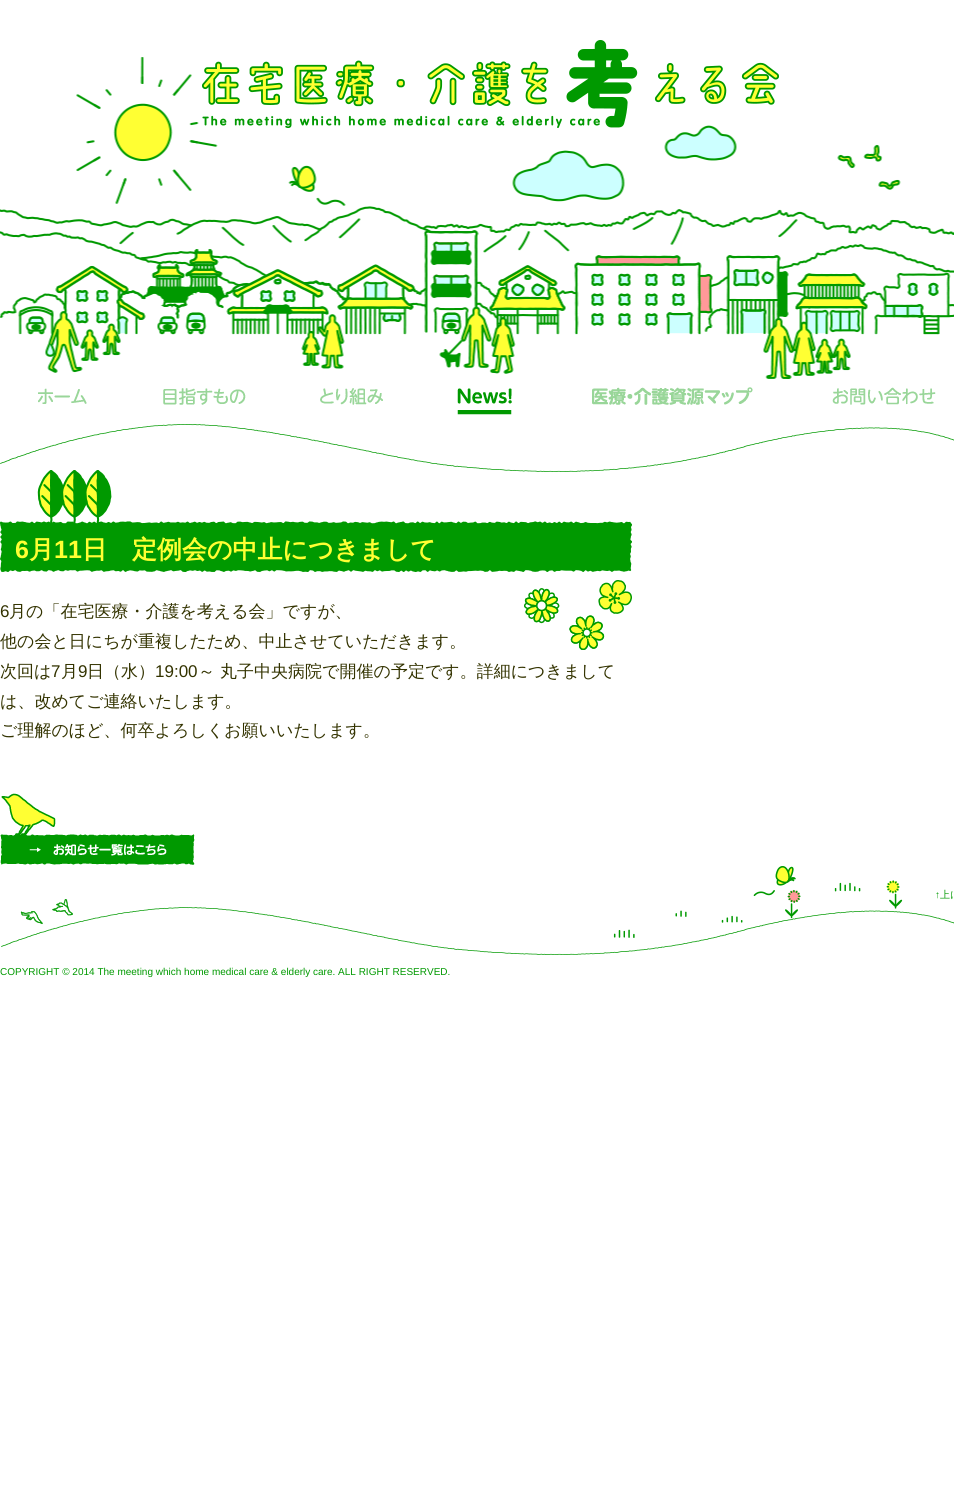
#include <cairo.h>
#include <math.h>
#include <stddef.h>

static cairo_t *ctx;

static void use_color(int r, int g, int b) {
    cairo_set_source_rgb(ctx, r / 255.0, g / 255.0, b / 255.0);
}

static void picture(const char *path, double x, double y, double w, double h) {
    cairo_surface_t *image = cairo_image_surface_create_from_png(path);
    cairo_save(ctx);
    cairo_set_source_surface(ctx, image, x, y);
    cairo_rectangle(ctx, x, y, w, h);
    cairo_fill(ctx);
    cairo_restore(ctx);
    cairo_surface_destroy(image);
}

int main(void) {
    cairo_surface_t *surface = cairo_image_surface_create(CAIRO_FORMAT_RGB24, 954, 1496);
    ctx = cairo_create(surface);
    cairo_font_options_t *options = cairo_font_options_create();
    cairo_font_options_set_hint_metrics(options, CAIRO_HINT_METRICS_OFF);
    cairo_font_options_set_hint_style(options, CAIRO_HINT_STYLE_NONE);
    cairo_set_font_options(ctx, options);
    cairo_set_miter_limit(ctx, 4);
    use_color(255, 255, 255);
    cairo_paint(ctx);
    picture("img1.png", 0, 424, 954, 48);
    picture("img2.png", 0, 57, 954, 322);
    picture("img3.png", 202, 40, 577, 88);
    picture("img4.png", 38, 388, 49, 16);
    picture("img5.png", 163, 388, 83, 17);
    picture("img6.png", 320, 388, 63, 17);
    picture("img7.png", 457, 388, 55, 27);
    picture("img8.png", 592, 387, 161, 18);
    picture("img9.png", 832, 387, 104, 18);
    picture("img10.png", 0, 470, 632, 102);
    cairo_select_font_face(ctx, "Liberation Sans", CAIRO_FONT_SLANT_NORMAL, CAIRO_FONT_WEIGHT_BOLD);
    cairo_set_font_size(ctx, 25);
    use_color(255, 255, 51);
    cairo_move_to(ctx, 15, 558);
    cairo_show_text(ctx, "6");
    cairo_select_font_face(ctx, "WenQuanYi Zen Hei", CAIRO_FONT_SLANT_NORMAL, CAIRO_FONT_WEIGHT_BOLD);
    cairo_move_to(ctx, 29, 558);
    cairo_show_text(ctx, "月");
    cairo_select_font_face(ctx, "Liberation Sans", CAIRO_FONT_SLANT_NORMAL, CAIRO_FONT_WEIGHT_BOLD);
    cairo_move_to(ctx, 54, 558);
    cairo_show_text(ctx, "11");
    cairo_select_font_face(ctx, "WenQuanYi Zen Hei", CAIRO_FONT_SLANT_NORMAL, CAIRO_FONT_WEIGHT_BOLD);
    cairo_move_to(ctx, 82, 558);
    cairo_show_text(ctx, "日　定例会の中止につきまして");
    picture("img11.png", 524, 580, 108, 70);
    cairo_select_font_face(ctx, "Liberation Sans", CAIRO_FONT_SLANT_NORMAL, CAIRO_FONT_WEIGHT_NORMAL);
    cairo_set_font_size(ctx, 17);
    use_color(51, 51, 0);
    cairo_move_to(ctx, 0, 617);
    cairo_show_text(ctx, "6");
    cairo_select_font_face(ctx, "WenQuanYi Zen Hei Medium", CAIRO_FONT_SLANT_NORMAL, CAIRO_FONT_WEIGHT_NORMAL);
    cairo_move_to(ctx, 9, 617);
    cairo_show_text(ctx, "月の「在宅医療・介護を考える会」ですが、");
    cairo_move_to(ctx, 0, 647);
    cairo_show_text(ctx, "他の会と日にちが重複したため、中止させていただきます。");
    cairo_move_to(ctx, 0, 677);
    cairo_show_text(ctx, "次回は");
    cairo_select_font_face(ctx, "Liberation Sans", CAIRO_FONT_SLANT_NORMAL, CAIRO_FONT_WEIGHT_NORMAL);
    cairo_move_to(ctx, 51, 677);
    cairo_show_text(ctx, "7");
    cairo_select_font_face(ctx, "WenQuanYi Zen Hei Medium", CAIRO_FONT_SLANT_NORMAL, CAIRO_FONT_WEIGHT_NORMAL);
    cairo_move_to(ctx, 61, 677);
    cairo_show_text(ctx, "月");
    cairo_select_font_face(ctx, "Liberation Sans", CAIRO_FONT_SLANT_NORMAL, CAIRO_FONT_WEIGHT_NORMAL);
    cairo_move_to(ctx, 78, 677);
    cairo_show_text(ctx, "9");
    cairo_select_font_face(ctx, "WenQuanYi Zen Hei Medium", CAIRO_FONT_SLANT_NORMAL, CAIRO_FONT_WEIGHT_NORMAL);
    cairo_move_to(ctx, 87, 677);
    cairo_show_text(ctx, "日（水）");
    cairo_select_font_face(ctx, "Liberation Sans", CAIRO_FONT_SLANT_NORMAL, CAIRO_FONT_WEIGHT_NORMAL);
    cairo_move_to(ctx, 155, 677);
    cairo_show_text(ctx, "19:00");
    cairo_select_font_face(ctx, "WenQuanYi Zen Hei Medium", CAIRO_FONT_SLANT_NORMAL, CAIRO_FONT_WEIGHT_NORMAL);
    cairo_move_to(ctx, 198, 677);
    cairo_show_text(ctx, "～ 丸子中央病院で開催の予定です。詳細につきまして");
    cairo_move_to(ctx, 0, 707);
    cairo_show_text(ctx, "は、改めてご連絡いたします。");
    cairo_move_to(ctx, 0, 736);
    cairo_show_text(ctx, "ご理解のほど、何卒よろしくお願いいたします。");
    picture("img12.png", 0, 793, 195, 72);
    picture("img13.png", 1, 866, 953, 89);
    cairo_select_font_face(ctx, "Liberation Sans", CAIRO_FONT_SLANT_NORMAL, CAIRO_FONT_WEIGHT_NORMAL);
    cairo_set_font_size(ctx, 10);
    use_color(0, 153, 0);
    cairo_move_to(ctx, 935, 898);
    cairo_show_text(ctx, "↑");
    cairo_select_font_face(ctx, "WenQuanYi Zen Hei Medium", CAIRO_FONT_SLANT_NORMAL, CAIRO_FONT_WEIGHT_NORMAL);
    cairo_move_to(ctx, 940, 898);
    cairo_show_text(ctx, "上に");
    cairo_select_font_face(ctx, "Liberation Sans", CAIRO_FONT_SLANT_NORMAL, CAIRO_FONT_WEIGHT_NORMAL);
    cairo_move_to(ctx, 0, 975);
    cairo_show_text(ctx, "COPYRIGHT © 2014 The meeting which home medical care & elderly care. ALL RIGHT RESERVED.");
    cairo_surface_write_to_png(surface, "result.png");
    cairo_font_options_destroy(options);
    cairo_destroy(ctx);
    cairo_surface_destroy(surface);
    return 0;
}
